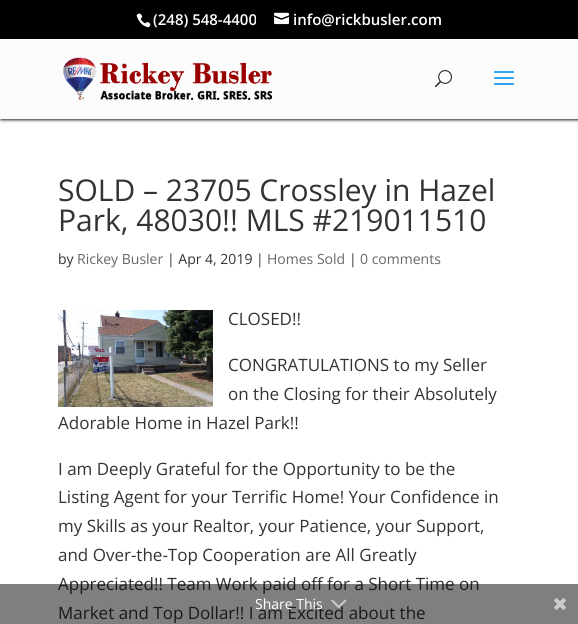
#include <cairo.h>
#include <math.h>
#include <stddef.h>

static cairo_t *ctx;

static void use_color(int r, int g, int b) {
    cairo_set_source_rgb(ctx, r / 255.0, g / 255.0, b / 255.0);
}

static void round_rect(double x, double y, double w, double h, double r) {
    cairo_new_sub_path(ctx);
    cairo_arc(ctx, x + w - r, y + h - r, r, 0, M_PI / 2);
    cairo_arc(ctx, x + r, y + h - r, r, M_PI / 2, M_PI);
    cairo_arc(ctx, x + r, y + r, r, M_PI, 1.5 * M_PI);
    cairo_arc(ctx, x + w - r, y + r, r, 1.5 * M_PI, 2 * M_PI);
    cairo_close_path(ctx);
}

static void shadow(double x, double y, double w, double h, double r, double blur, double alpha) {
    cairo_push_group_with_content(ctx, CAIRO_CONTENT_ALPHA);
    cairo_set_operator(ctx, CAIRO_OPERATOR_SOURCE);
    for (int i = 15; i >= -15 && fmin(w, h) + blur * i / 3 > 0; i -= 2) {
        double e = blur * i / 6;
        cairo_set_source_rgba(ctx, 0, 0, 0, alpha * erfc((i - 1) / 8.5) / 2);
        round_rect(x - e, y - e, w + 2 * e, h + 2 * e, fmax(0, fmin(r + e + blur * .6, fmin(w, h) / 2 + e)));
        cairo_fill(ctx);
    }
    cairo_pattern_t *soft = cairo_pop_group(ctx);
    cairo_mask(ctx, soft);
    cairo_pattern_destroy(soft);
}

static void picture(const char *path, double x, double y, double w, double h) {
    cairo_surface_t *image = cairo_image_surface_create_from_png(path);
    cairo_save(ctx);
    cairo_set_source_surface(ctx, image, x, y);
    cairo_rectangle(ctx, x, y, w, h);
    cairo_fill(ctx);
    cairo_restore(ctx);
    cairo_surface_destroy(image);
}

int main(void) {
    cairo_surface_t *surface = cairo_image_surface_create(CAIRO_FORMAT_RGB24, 578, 624);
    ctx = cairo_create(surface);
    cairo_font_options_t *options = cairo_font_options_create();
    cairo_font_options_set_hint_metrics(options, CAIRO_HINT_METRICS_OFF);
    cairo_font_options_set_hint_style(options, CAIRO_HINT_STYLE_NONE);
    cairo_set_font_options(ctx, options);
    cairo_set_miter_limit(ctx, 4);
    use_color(255, 255, 255);
    cairo_paint(ctx);
    use_color(32, 32, 32);
    shadow(1, 40, 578, 80, 0, 1.5, 1);
    use_color(0, 0, 0);
    cairo_rectangle(ctx, 0, 0, 578, 39);
    cairo_fill(ctx);
    picture("img1.png", 136, 13, 15, 15);
    cairo_select_font_face(ctx, "Open Sans SemiBold", CAIRO_FONT_SLANT_NORMAL, CAIRO_FONT_WEIGHT_NORMAL);
    cairo_set_font_size(ctx, 15);
    use_color(255, 255, 255);
    cairo_move_to(ctx, 153, 25);
    cairo_show_text(ctx, "(248) 548-4400");
    picture("img2.png", 274, 12, 15, 13);
    cairo_move_to(ctx, 293, 25);
    cairo_show_text(ctx, "info@rickbusler.com");
    use_color(252, 252, 252);
    cairo_rectangle(ctx, 0, 39, 578, 80);
    cairo_fill(ctx);
    picture("img3.png", 63, 57, 210, 43);
    picture("img4.png", 435, 70, 17, 18);
    picture("img5.png", 494, 71, 20, 14);
    cairo_select_font_face(ctx, "Open Sans", CAIRO_FONT_SLANT_NORMAL, CAIRO_FONT_WEIGHT_NORMAL);
    cairo_set_font_size(ctx, 30);
    use_color(51, 51, 51);
    cairo_move_to(ctx, 58, 201);
    cairo_show_text(ctx, "SOLD – 23705 Crossley in Hazel");
    cairo_move_to(ctx, 58, 231);
    cairo_show_text(ctx, "Park, 48030!! MLS #219011510");
    cairo_set_font_size(ctx, 14);
    cairo_move_to(ctx, 58, 264);
    cairo_show_text(ctx, "by");
    use_color(102, 102, 102);
    cairo_move_to(ctx, 77, 264);
    cairo_show_text(ctx, "Rickey Busler");
    use_color(51, 51, 51);
    cairo_move_to(ctx, 167, 264);
    cairo_show_text(ctx, "| Apr 4, 2019 |");
    use_color(102, 102, 102);
    cairo_move_to(ctx, 267, 264);
    cairo_show_text(ctx, "Homes Sold");
    use_color(51, 51, 51);
    cairo_move_to(ctx, 349, 264);
    cairo_show_text(ctx, "|");
    use_color(102, 102, 102);
    cairo_move_to(ctx, 360, 264);
    cairo_show_text(ctx, "0 comments");
    picture("img6.png", 58, 310, 155, 97);
    cairo_set_font_size(ctx, 17);
    use_color(51, 51, 51);
    cairo_move_to(ctx, 228, 325);
    cairo_show_text(ctx, "CLOSED!!");
    cairo_move_to(ctx, 228, 371);
    cairo_show_text(ctx, "CONGRATULATIONS to my Seller");
    cairo_move_to(ctx, 228, 400);
    cairo_show_text(ctx, "on the Closing for their Absolutely");
    cairo_move_to(ctx, 58, 429);
    cairo_show_text(ctx, "Adorable Home in Hazel Park!!");
    cairo_move_to(ctx, 58, 475);
    cairo_show_text(ctx, "I am Deeply Grateful for the Opportunity to be the");
    cairo_move_to(ctx, 58, 503);
    cairo_show_text(ctx, "Listing Agent for your Terrific Home! Your Confidence in");
    cairo_move_to(ctx, 58, 532);
    cairo_show_text(ctx, "my Skills as your Realtor, your Patience, your Support,");
    cairo_move_to(ctx, 58, 561);
    cairo_show_text(ctx, "and Over-the-Top Cooperation are All Greatly");
    cairo_move_to(ctx, 58, 590);
    cairo_show_text(ctx, "Appreciated!! Team Work paid off for a Short Time on");
    cairo_move_to(ctx, 58, 619);
    cairo_show_text(ctx, "Market and Top Dollar!! I am Excited about the");
    cairo_set_source_rgba(ctx, 0, 0, 0, 0.5);
    cairo_rectangle(ctx, 0, 584, 578, 40);
    cairo_fill(ctx);
    cairo_set_font_size(ctx, 14);
    use_color(255, 255, 255);
    cairo_move_to(ctx, 255, 609);
    cairo_show_text(ctx, "Share This");
    picture("img7.png", 331, 599, 16, 9);
    picture("img8.png", 554, 598, 12, 12);
    cairo_surface_write_to_png(surface, "result.png");
    cairo_font_options_destroy(options);
    cairo_destroy(ctx);
    cairo_surface_destroy(surface);
    return 0;
}
